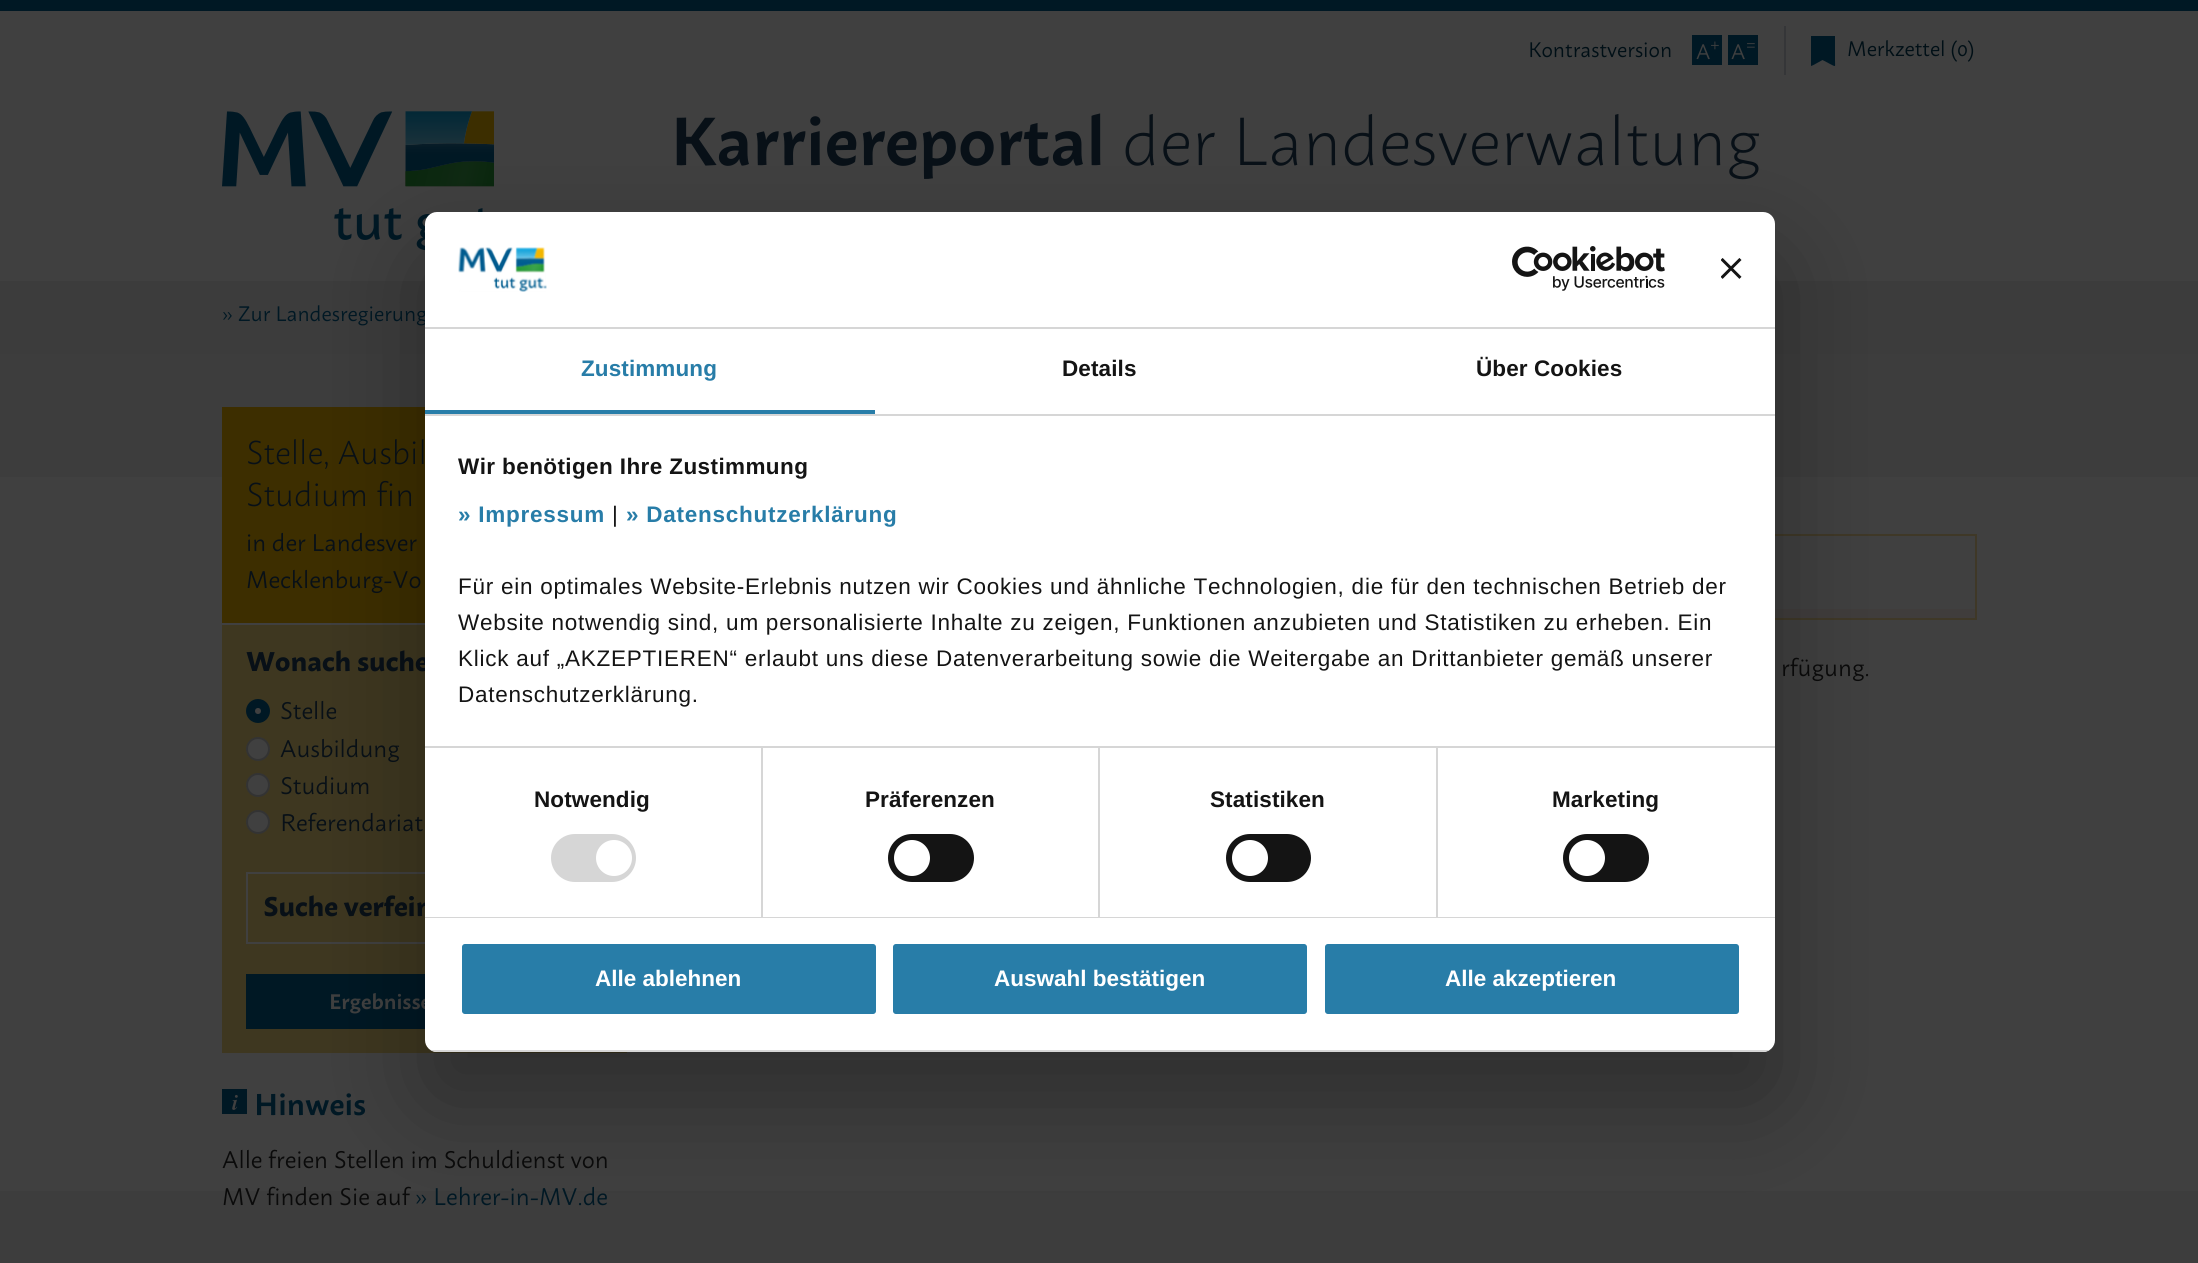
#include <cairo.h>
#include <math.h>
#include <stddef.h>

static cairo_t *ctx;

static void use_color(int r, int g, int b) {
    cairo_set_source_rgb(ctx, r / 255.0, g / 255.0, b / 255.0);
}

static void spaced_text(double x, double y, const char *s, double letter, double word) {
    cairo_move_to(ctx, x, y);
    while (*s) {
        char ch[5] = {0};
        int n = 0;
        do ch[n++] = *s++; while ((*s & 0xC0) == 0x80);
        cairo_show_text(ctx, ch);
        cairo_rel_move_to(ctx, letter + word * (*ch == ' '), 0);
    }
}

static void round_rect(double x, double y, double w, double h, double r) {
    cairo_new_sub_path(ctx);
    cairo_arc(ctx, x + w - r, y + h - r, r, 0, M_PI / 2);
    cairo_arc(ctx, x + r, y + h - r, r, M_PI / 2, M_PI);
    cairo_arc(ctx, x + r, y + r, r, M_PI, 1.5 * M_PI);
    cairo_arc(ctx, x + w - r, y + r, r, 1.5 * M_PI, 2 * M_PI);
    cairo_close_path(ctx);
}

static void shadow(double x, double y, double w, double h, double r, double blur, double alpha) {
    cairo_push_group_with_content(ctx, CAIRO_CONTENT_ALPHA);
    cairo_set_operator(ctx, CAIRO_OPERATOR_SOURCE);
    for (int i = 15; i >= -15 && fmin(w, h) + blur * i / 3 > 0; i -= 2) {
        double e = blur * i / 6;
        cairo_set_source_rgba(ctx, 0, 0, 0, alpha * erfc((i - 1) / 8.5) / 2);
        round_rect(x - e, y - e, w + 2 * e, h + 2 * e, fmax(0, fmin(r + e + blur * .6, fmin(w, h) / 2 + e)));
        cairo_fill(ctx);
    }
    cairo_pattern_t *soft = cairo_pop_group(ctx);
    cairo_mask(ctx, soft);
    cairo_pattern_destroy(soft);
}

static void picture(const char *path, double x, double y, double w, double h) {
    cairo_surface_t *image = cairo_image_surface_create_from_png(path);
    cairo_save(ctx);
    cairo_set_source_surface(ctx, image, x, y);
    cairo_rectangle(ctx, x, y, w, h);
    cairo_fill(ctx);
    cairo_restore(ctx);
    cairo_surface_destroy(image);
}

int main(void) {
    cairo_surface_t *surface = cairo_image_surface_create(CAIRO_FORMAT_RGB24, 2198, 1263);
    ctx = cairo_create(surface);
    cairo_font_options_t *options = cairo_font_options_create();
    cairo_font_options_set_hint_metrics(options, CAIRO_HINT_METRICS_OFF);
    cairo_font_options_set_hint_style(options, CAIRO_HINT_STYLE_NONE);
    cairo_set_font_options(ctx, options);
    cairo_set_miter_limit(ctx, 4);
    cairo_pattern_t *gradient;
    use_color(64, 64, 64);
    cairo_paint(ctx);
    use_color(0, 24, 36);
    cairo_rectangle(ctx, 0, 0, 2198, 11);
    cairo_fill(ctx);
    cairo_select_font_face(ctx, "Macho", CAIRO_FONT_SLANT_NORMAL, CAIRO_FONT_WEIGHT_NORMAL);
    cairo_set_font_size(ctx, 21);
    use_color(0, 15, 22);
    cairo_move_to(ctx, 1528, 57);
    cairo_show_text(ctx, "Kontrastversion");
    use_color(0, 24, 36);
    cairo_rectangle(ctx, 1692, 35, 30, 30);
    cairo_fill(ctx);
    use_color(64, 64, 64);
    cairo_move_to(ctx, 1696, 59);
    cairo_show_text(ctx, "A");
    cairo_set_font_size(ctx, 16);
    cairo_move_to(ctx, 1710, 51);
    cairo_show_text(ctx, "+");
    use_color(0, 24, 36);
    cairo_rectangle(ctx, 1728, 35, 30, 30);
    cairo_fill(ctx);
    cairo_set_font_size(ctx, 21);
    use_color(64, 64, 64);
    cairo_move_to(ctx, 1731, 59);
    cairo_show_text(ctx, "A");
    cairo_set_font_size(ctx, 16);
    cairo_move_to(ctx, 1746, 51);
    cairo_show_text(ctx, "=");
    use_color(53, 54, 56);
    cairo_rectangle(ctx, 1784, 26, 2, 49);
    cairo_fill(ctx);
    cairo_save(ctx);
    cairo_rectangle(ctx, 1811, 36, 25, 30);
    cairo_clip(ctx);
    use_color(0, 24, 36);
    cairo_set_fill_rule(ctx, CAIRO_FILL_RULE_EVEN_ODD);
    cairo_new_path(ctx);
    cairo_move_to(ctx, 1810.5, 36);
    cairo_line_to(ctx, 1810.5, 60.5);
    cairo_curve_to(ctx, 1810.5, 66, 1809.5, 67, 1813.5, 65);
    cairo_line_to(ctx, 1822.5, 60);
    cairo_line_to(ctx, 1832, 65);
    cairo_curve_to(ctx, 1836, 67, 1835, 66.5, 1835, 60.5);
    cairo_line_to(ctx, 1835, 36);
    cairo_close_path(ctx);
    cairo_fill(ctx);
    cairo_restore(ctx);
    cairo_set_font_size(ctx, 21);
    use_color(0, 15, 22);
    cairo_move_to(ctx, 1847, 56);
    cairo_show_text(ctx, "Merkzettel (0)");
    picture("img1.png", 222, 111, 272, 140);
    cairo_select_font_face(ctx, "Macho SemiBold", CAIRO_FONT_SLANT_NORMAL, CAIRO_FONT_WEIGHT_NORMAL);
    cairo_set_font_size(ctx, 67.5);
    use_color(8, 16, 23);
    cairo_move_to(ctx, 670, 165);
    cairo_show_text(ctx, "Karriereportal");
    cairo_select_font_face(ctx, "Macho Light", CAIRO_FONT_SLANT_NORMAL, CAIRO_FONT_WEIGHT_NORMAL);
    cairo_move_to(ctx, 1122, 165);
    cairo_show_text(ctx, "der Landesverwaltung");
    gradient = cairo_pattern_create_linear(1100, 280, 1100, 806);
    cairo_pattern_add_color_stop_rgba(gradient, 0, 0.235, 0.235, 0.235, 1);
    cairo_pattern_add_color_stop_rgba(gradient, 1, 0.251, 0.251, 0.251, 1);
    cairo_set_source(ctx, gradient);
    cairo_pattern_destroy(gradient);
    cairo_rectangle(ctx, 0, 281, 2198, 196);
    cairo_fill(ctx);
    cairo_select_font_face(ctx, "Macho", CAIRO_FONT_SLANT_NORMAL, CAIRO_FONT_WEIGHT_NORMAL);
    cairo_set_font_size(ctx, 21);
    use_color(0, 24, 36);
    cairo_move_to(ctx, 222, 321);
    cairo_show_text(ctx, "» Zur Landesregierung");
    use_color(61, 46, 0);
    cairo_rectangle(ctx, 222, 407, 203, 216);
    cairo_fill(ctx);
    cairo_select_font_face(ctx, "Macho Light", CAIRO_FONT_SLANT_NORMAL, CAIRO_FONT_WEIGHT_NORMAL);
    cairo_set_font_size(ctx, 33);
    use_color(8, 16, 23);
    cairo_move_to(ctx, 246, 464);
    cairo_show_text(ctx, "Stelle, Ausbil");
    cairo_move_to(ctx, 246, 506);
    cairo_show_text(ctx, "Studium fin");
    cairo_select_font_face(ctx, "Macho", CAIRO_FONT_SLANT_NORMAL, CAIRO_FONT_WEIGHT_NORMAL);
    cairo_set_font_size(ctx, 24);
    cairo_move_to(ctx, 246, 551);
    cairo_show_text(ctx, "in der Landesver");
    cairo_move_to(ctx, 246, 588);
    cairo_show_text(ctx, "Mecklenburg-Vo");
    use_color(62, 55, 32);
    cairo_rectangle(ctx, 222, 625, 405, 428);
    cairo_fill(ctx);
    cairo_select_font_face(ctx, "Macho", CAIRO_FONT_SLANT_NORMAL, CAIRO_FONT_WEIGHT_BOLD);
    cairo_set_font_size(ctx, 27);
    use_color(8, 16, 23);
    cairo_move_to(ctx, 246, 671);
    cairo_show_text(ctx, "Wonach suche");
    use_color(0, 24, 36);
    cairo_new_path(ctx);
    cairo_arc(ctx, 258, 711, 12, 0, 2 * M_PI);
    cairo_fill(ctx);
    use_color(64, 64, 64);
    cairo_arc(ctx, 258, 711, 3, 0, 2 * M_PI);
    cairo_fill(ctx);
    cairo_select_font_face(ctx, "Macho", CAIRO_FONT_SLANT_NORMAL, CAIRO_FONT_WEIGHT_NORMAL);
    cairo_set_font_size(ctx, 24);
    use_color(8, 16, 23);
    cairo_move_to(ctx, 280, 719);
    cairo_show_text(ctx, "Stelle");
    use_color(64, 64, 64);
    cairo_new_path(ctx);
    cairo_arc(ctx, 258, 749, 11, 0, 2 * M_PI);
    cairo_fill_preserve(ctx);
    use_color(51, 51, 51);
    cairo_stroke(ctx);
    use_color(8, 16, 23);
    cairo_move_to(ctx, 280, 757);
    cairo_show_text(ctx, "Ausbildung");
    use_color(64, 64, 64);
    cairo_new_path(ctx);
    cairo_arc(ctx, 258, 785, 11, 0, 2 * M_PI);
    cairo_fill_preserve(ctx);
    use_color(51, 51, 51);
    cairo_stroke(ctx);
    use_color(8, 16, 23);
    cairo_move_to(ctx, 280, 794);
    cairo_show_text(ctx, "Studium");
    use_color(64, 64, 64);
    cairo_new_path(ctx);
    cairo_arc(ctx, 258, 822, 11, 0, 2 * M_PI);
    cairo_fill_preserve(ctx);
    use_color(51, 51, 51);
    cairo_stroke(ctx);
    use_color(8, 16, 23);
    cairo_move_to(ctx, 280, 831);
    cairo_show_text(ctx, "Referendariat");
    cairo_rectangle(ctx, 247, 873, 355, 70);
    use_color(64, 64, 64);
    cairo_stroke(ctx);
    cairo_select_font_face(ctx, "Macho", CAIRO_FONT_SLANT_NORMAL, CAIRO_FONT_WEIGHT_BOLD);
    cairo_set_font_size(ctx, 27);
    use_color(8, 16, 23);
    cairo_move_to(ctx, 263, 916);
    cairo_show_text(ctx, "Suche verfein");
    use_color(0, 24, 36);
    cairo_rectangle(ctx, 246, 974, 179, 55);
    cairo_fill(ctx);
    cairo_select_font_face(ctx, "Macho SemiBold", CAIRO_FONT_SLANT_NORMAL, CAIRO_FONT_WEIGHT_NORMAL);
    cairo_set_font_size(ctx, 21);
    use_color(64, 64, 64);
    cairo_move_to(ctx, 329, 1009);
    cairo_show_text(ctx, "Ergebnisse");
    picture("img2.png", 222, 1089, 25, 25);
    cairo_set_font_size(ctx, 30);
    use_color(0, 24, 36);
    cairo_move_to(ctx, 254, 1115);
    cairo_show_text(ctx, "Hinweis");
    cairo_select_font_face(ctx, "Macho", CAIRO_FONT_SLANT_NORMAL, CAIRO_FONT_WEIGHT_NORMAL);
    cairo_set_font_size(ctx, 24);
    use_color(10, 10, 10);
    cairo_move_to(ctx, 222, 1168);
    cairo_show_text(ctx, "Alle freien Stellen im Schuldienst von");
    gradient = cairo_pattern_create_linear(1100, 862, 1100, 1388);
    cairo_pattern_add_color_stop_rgba(gradient, 0, 0.251, 0.251, 0.251, 1);
    cairo_pattern_add_color_stop_rgba(gradient, 1, 0.235, 0.235, 0.235, 1);
    cairo_set_source(ctx, gradient);
    cairo_pattern_destroy(gradient);
    cairo_rectangle(ctx, 0, 1191, 2198, 72);
    cairo_fill(ctx);
    use_color(10, 10, 10);
    cairo_move_to(ctx, 222, 1205);
    cairo_show_text(ctx, "MV finden Sie auf");
    use_color(0, 24, 36);
    cairo_move_to(ctx, 415, 1205);
    cairo_show_text(ctx, "» Lehrer-in-MV.de");
    use_color(64, 61, 60);
    cairo_rectangle(ctx, 1775, 609, 200, 9);
    cairo_fill(ctx);
    cairo_rectangle(ctx, 1011, 535, 965, 84);
    use_color(63, 56, 39);
    cairo_stroke(ctx);
    use_color(10, 10, 10);
    cairo_move_to(ctx, 1781, 676);
    cairo_show_text(ctx, "rfügung.");
    use_color(0, 0, 0);
    shadow(425, 260, 1350, 840, 12, 51, 0.3);
    use_color(255, 255, 255);
    round_rect(425, 212, 1350, 840, 12);
    cairo_fill(ctx);
    use_color(214, 214, 214);
    cairo_rectangle(ctx, 425, 327, 1350, 2);
    cairo_fill(ctx);
    picture("img3.png", 458, 247, 89, 45);
    picture("img4.png", 1512, 246, 153, 45);
    picture("img5.png", 1721, 258, 21, 21);
    cairo_rectangle(ctx, 425, 414, 1350, 2);
    cairo_fill(ctx);
    use_color(40, 125, 168);
    cairo_rectangle(ctx, 425, 410, 450, 4);
    cairo_fill(ctx);
    cairo_select_font_face(ctx, "Liberation Sans", CAIRO_FONT_SLANT_NORMAL, CAIRO_FONT_WEIGHT_BOLD);
    cairo_set_font_size(ctx, 22.5);
    spaced_text(581, 376, "Zustimmung", 0.1, 0);
    use_color(20, 20, 20);
    spaced_text(1062, 376, "Details", 0.1, 0);
    spaced_text(1476, 376, "Über Cookies", 0.1, 0);
    use_color(214, 214, 214);
    cairo_rectangle(ctx, 761, 747, 2, 170);
    cairo_fill(ctx);
    cairo_rectangle(ctx, 1098, 747, 2, 170);
    cairo_fill(ctx);
    cairo_rectangle(ctx, 1436, 747, 2, 170);
    cairo_fill(ctx);
    cairo_rectangle(ctx, 425, 746, 1350, 2);
    cairo_fill(ctx);
    use_color(20, 20, 20);
    spaced_text(458, 474, "Wir benötigen Ihre Zustimmung", 0.4, 0);
    use_color(40, 125, 168);
    spaced_text(458, 522, "» Impressum", 0.75, 0);
    cairo_select_font_face(ctx, "Liberation Sans", CAIRO_FONT_SLANT_NORMAL, CAIRO_FONT_WEIGHT_NORMAL);
    use_color(20, 20, 20);
    spaced_text(612, 522, "|", 0.75, 0);
    cairo_select_font_face(ctx, "Liberation Sans", CAIRO_FONT_SLANT_NORMAL, CAIRO_FONT_WEIGHT_BOLD);
    use_color(40, 125, 168);
    spaced_text(626, 522, "» Datenschutzerklärung", 0.75, 0);
    cairo_select_font_face(ctx, "Liberation Sans", CAIRO_FONT_SLANT_NORMAL, CAIRO_FONT_WEIGHT_NORMAL);
    use_color(20, 20, 20);
    spaced_text(458, 594, "Für ein optimales Website-Erlebnis nutzen wir Cookies und ähnliche Technologien, die für den technischen Betrieb der", 0.75, 0);
    spaced_text(458, 630, "Website notwendig sind, um personalisierte Inhalte zu zeigen, Funktionen anzubieten und Statistiken zu erheben. Ein", 0.75, 0);
    spaced_text(458, 666, "Klick auf „AKZEPTIEREN“ erlaubt uns diese Datenverarbeitung sowie die Weitergabe an Drittanbieter gemäß unserer", 0.75, 0);
    spaced_text(458, 702, "Datenschutzerklärung.", 0.75, 0);
    use_color(214, 214, 214);
    cairo_rectangle(ctx, 425, 917, 1350, 1);
    cairo_fill(ctx);
    cairo_select_font_face(ctx, "Liberation Sans", CAIRO_FONT_SLANT_NORMAL, CAIRO_FONT_WEIGHT_BOLD);
    use_color(20, 20, 20);
    spaced_text(534, 807, "Notwendig", 0.1, 0);
    use_color(214, 214, 214);
    round_rect(551, 834, 85, 48, 24);
    cairo_fill(ctx);
    use_color(255, 255, 255);
    cairo_arc(ctx, 614, 858, 18, 0, 2 * M_PI);
    cairo_fill(ctx);
    use_color(20, 20, 20);
    spaced_text(865, 807, "Präferenzen", 0.1, 0);
    round_rect(888, 834, 86, 48, 24);
    cairo_fill(ctx);
    use_color(255, 255, 255);
    cairo_arc(ctx, 912, 858, 18, 0, 2 * M_PI);
    cairo_fill(ctx);
    use_color(20, 20, 20);
    spaced_text(1210, 807, "Statistiken", 0.1, 0);
    round_rect(1226, 834, 85, 48, 24);
    cairo_fill(ctx);
    use_color(255, 255, 255);
    cairo_arc(ctx, 1250, 858, 18, 0, 2 * M_PI);
    cairo_fill(ctx);
    use_color(20, 20, 20);
    spaced_text(1552, 807, "Marketing", 0.1, 0);
    round_rect(1563, 834, 86, 48, 24);
    cairo_fill(ctx);
    use_color(255, 255, 255);
    cairo_arc(ctx, 1587, 858, 18, 0, 2 * M_PI);
    cairo_fill(ctx);
    cairo_save(ctx);
    round_rect(425, 212, 1350, 840, 12);
    cairo_clip(ctx);
    use_color(214, 214, 214);
    cairo_rectangle(ctx, 425, 1050, 1350, 2);
    cairo_fill(ctx);
    cairo_restore(ctx);
    use_color(40, 125, 168);
    round_rect(460.5, 942.5, 417, 73, 4.5);
    cairo_fill_preserve(ctx);
    use_color(255, 255, 255);
    cairo_set_line_width(ctx, 3);
    cairo_stroke(ctx);
    cairo_move_to(ctx, 595, 986);
    cairo_show_text(ctx, "Alle ablehnen");
    use_color(40, 125, 168);
    round_rect(891.5, 942.5, 417, 73, 4.5);
    cairo_fill_preserve(ctx);
    use_color(255, 255, 255);
    cairo_stroke(ctx);
    cairo_move_to(ctx, 994, 986);
    cairo_show_text(ctx, "Auswahl bestätigen");
    use_color(40, 125, 168);
    round_rect(1323.5, 942.5, 417, 73, 4.5);
    cairo_fill_preserve(ctx);
    use_color(255, 255, 255);
    cairo_stroke(ctx);
    cairo_move_to(ctx, 1445, 986);
    cairo_show_text(ctx, "Alle akzeptieren");
    cairo_surface_write_to_png(surface, "result.png");
    cairo_font_options_destroy(options);
    cairo_destroy(ctx);
    cairo_surface_destroy(surface);
    return 0;
}
